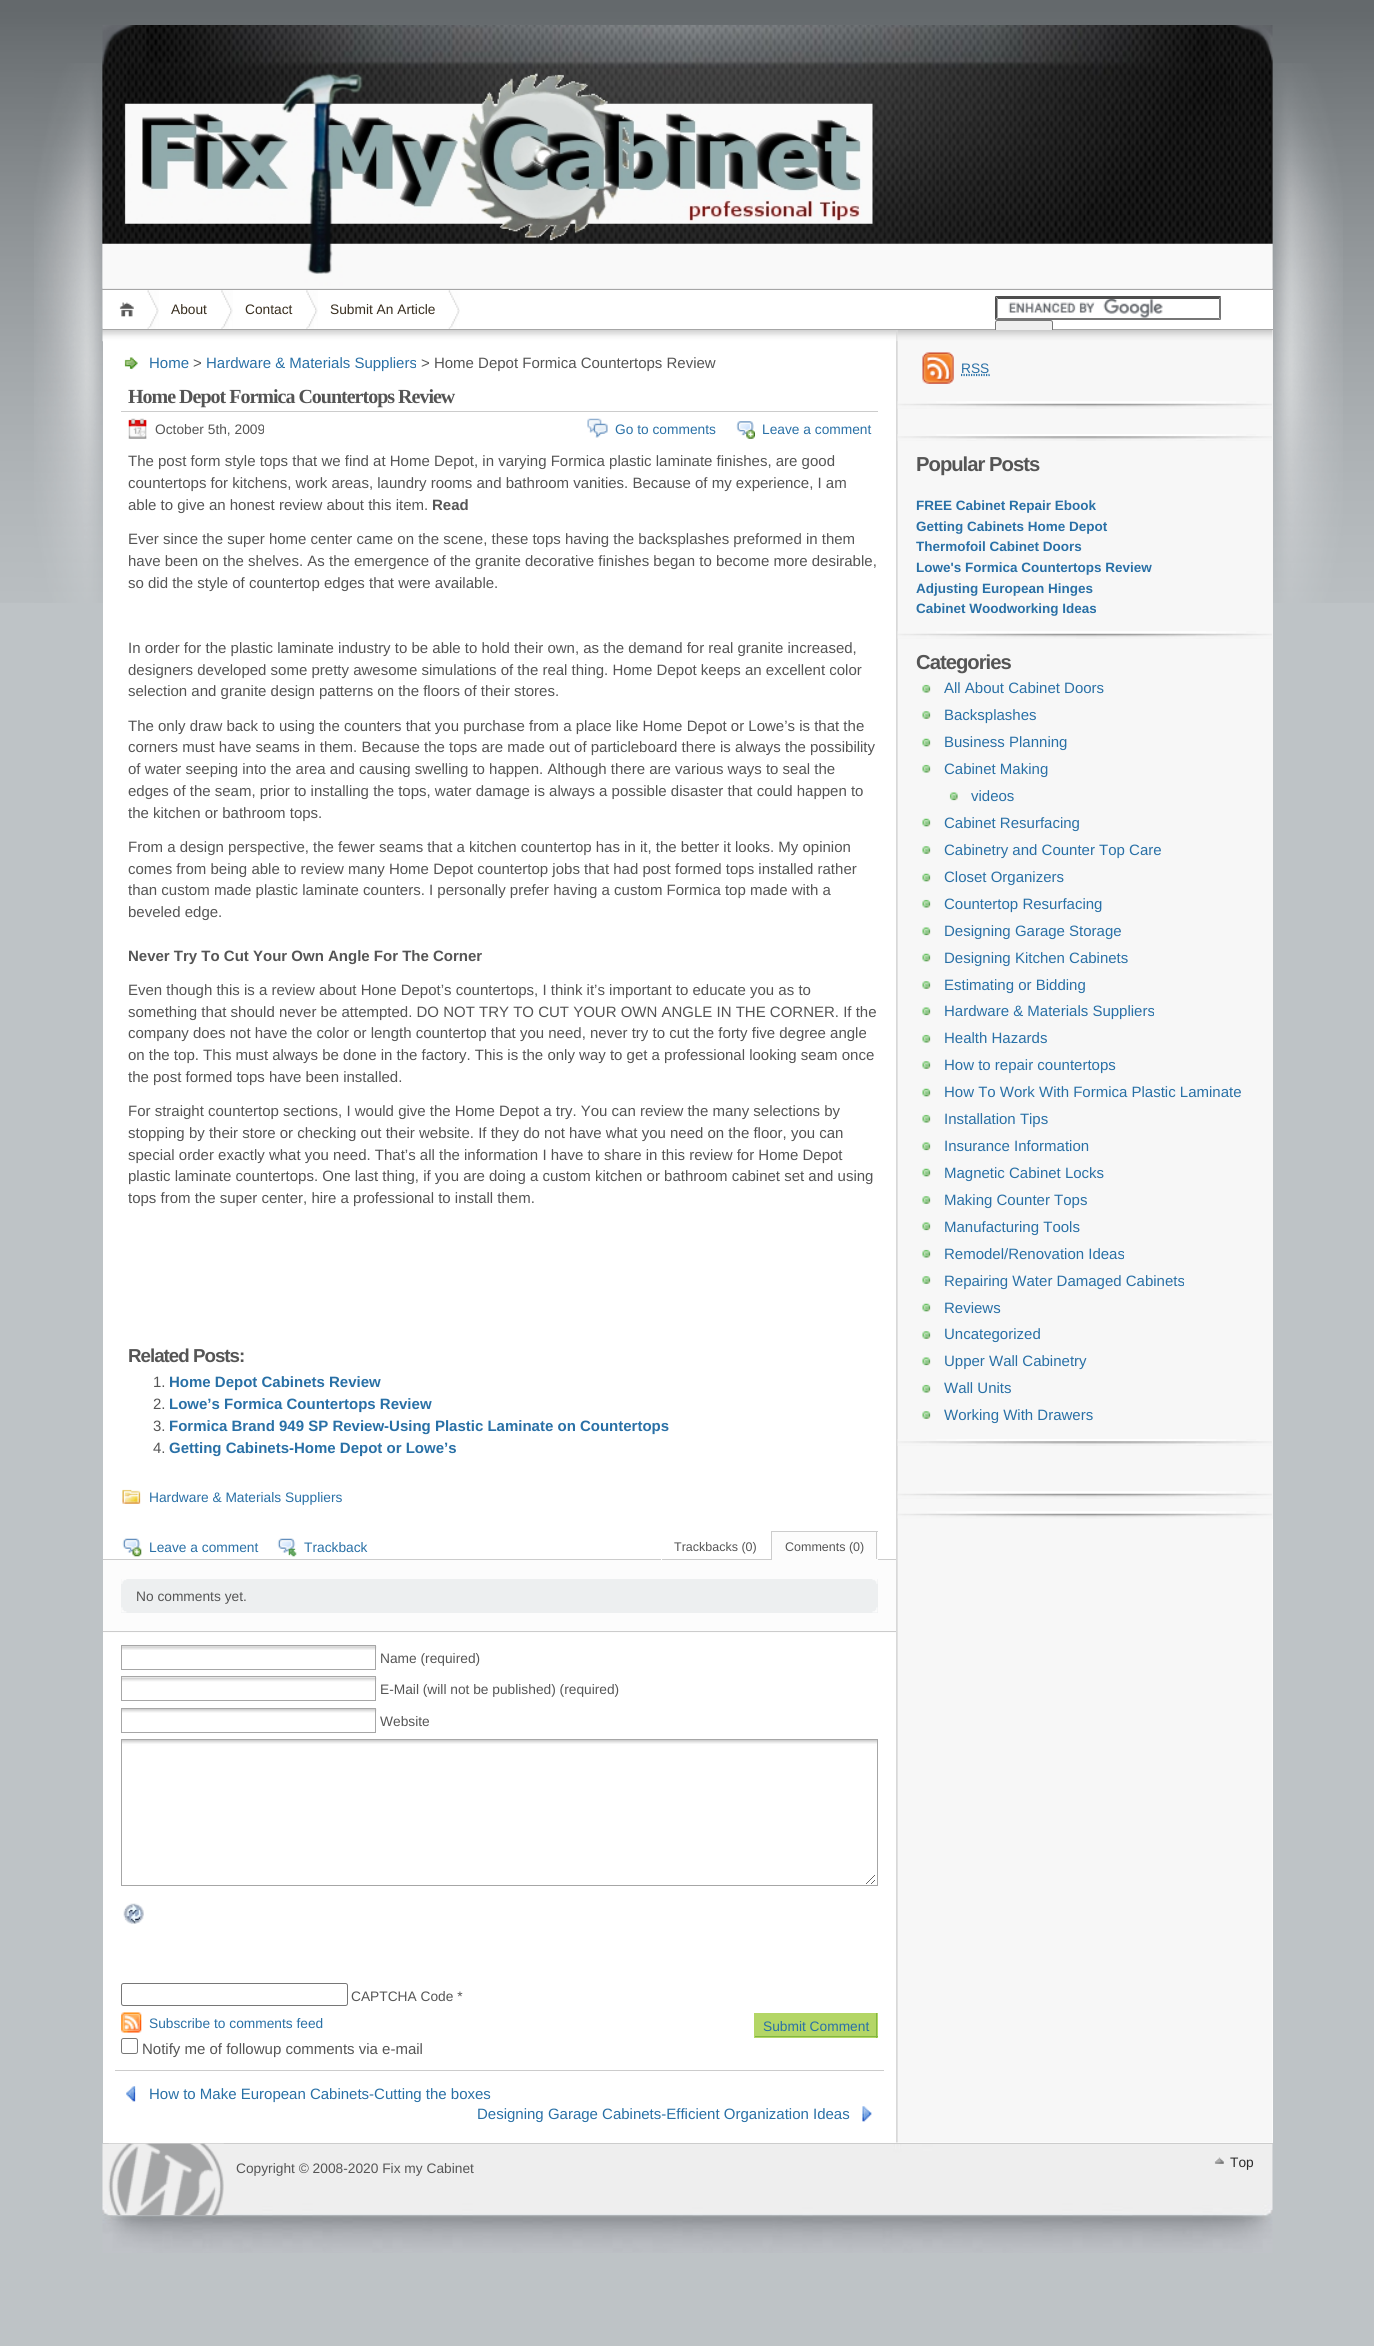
#include <cairo.h>
#include <math.h>
#include <stddef.h>

static cairo_t *ctx;

static void use_color(int r, int g, int b) {
    cairo_set_source_rgb(ctx, r / 255.0, g / 255.0, b / 255.0);
}

static void spaced_text(double x, double y, const char *s, double letter, double word) {
    cairo_move_to(ctx, x, y);
    while (*s) {
        char ch[5] = {0};
        int n = 0;
        do ch[n++] = *s++; while ((*s & 0xC0) == 0x80);
        cairo_show_text(ctx, ch);
        cairo_rel_move_to(ctx, letter + word * (*ch == ' '), 0);
    }
}

static void round_rect(double x, double y, double w, double h, double r) {
    cairo_new_sub_path(ctx);
    cairo_arc(ctx, x + w - r, y + h - r, r, 0, M_PI / 2);
    cairo_arc(ctx, x + r, y + h - r, r, M_PI / 2, M_PI);
    cairo_arc(ctx, x + r, y + r, r, M_PI, 1.5 * M_PI);
    cairo_arc(ctx, x + w - r, y + r, r, 1.5 * M_PI, 2 * M_PI);
    cairo_close_path(ctx);
}

static void picture(const char *path, double x, double y, double w, double h) {
    cairo_surface_t *image = cairo_image_surface_create_from_png(path);
    cairo_save(ctx);
    cairo_set_source_surface(ctx, image, x, y);
    cairo_rectangle(ctx, x, y, w, h);
    cairo_fill(ctx);
    cairo_restore(ctx);
    cairo_surface_destroy(image);
}

int main(void) {
    cairo_surface_t *surface = cairo_image_surface_create(CAIRO_FORMAT_RGB24, 1374, 2346);
    ctx = cairo_create(surface);
    cairo_font_options_t *options = cairo_font_options_create();
    cairo_font_options_set_hint_metrics(options, CAIRO_HINT_METRICS_OFF);
    cairo_font_options_set_hint_style(options, CAIRO_HINT_STYLE_NONE);
    cairo_set_font_options(ctx, options);
    cairo_set_miter_limit(ctx, 4);
    use_color(190, 195, 198);
    cairo_paint(ctx);
    picture("img1.png", 0, 0, 1374, 603);
    picture("img2.png", 34, 63, 1309, 540);
    picture("img3.png", 102, 25, 1171, 264);
    use_color(166, 166, 166);
    cairo_rectangle(ctx, 103, 289, 1170, 1);
    cairo_fill(ctx);
    picture("img4.png", 102, 57, 1171, 232);
    use_color(255, 255, 255);
    cairo_rectangle(ctx, 103, 290, 1170, 39);
    cairo_fill(ctx);
    use_color(166, 166, 166);
    cairo_rectangle(ctx, 103, 329, 1170, 1);
    cairo_fill(ctx);
    picture("img5.png", 102, 290, 32, 39);
    picture("img6.png", 147, 290, 12, 39);
    cairo_select_font_face(ctx, "Liberation Sans", CAIRO_FONT_SLANT_NORMAL, CAIRO_FONT_WEIGHT_NORMAL);
    cairo_set_font_size(ctx, 13.75);
    use_color(56, 46, 31);
    cairo_move_to(ctx, 171, 314);
    cairo_show_text(ctx, "About");
    picture("img7.png", 221, 290, 12, 39);
    cairo_move_to(ctx, 245, 314);
    cairo_show_text(ctx, "Contact");
    picture("img8.png", 306, 290, 12, 39);
    cairo_move_to(ctx, 330, 314);
    cairo_show_text(ctx, "Submit An Article");
    picture("img9.png", 448, 290, 12, 39);
    picture("img10.png", 1008, 299, 155, 19);
    use_color(79, 79, 79);
    cairo_new_path(ctx);
    cairo_move_to(ctx, 995, 296);
    cairo_line_to(ctx, 1221, 296);
    cairo_line_to(ctx, 1219, 299);
    cairo_line_to(ctx, 998, 299);
    cairo_close_path(ctx);
    cairo_fill(ctx);
    use_color(118, 118, 118);
    cairo_new_path(ctx);
    cairo_move_to(ctx, 1221, 296);
    cairo_line_to(ctx, 1221, 320);
    cairo_line_to(ctx, 1219, 317.5);
    cairo_line_to(ctx, 1219, 299);
    cairo_close_path(ctx);
    cairo_fill(ctx);
    cairo_new_path(ctx);
    cairo_move_to(ctx, 1221, 320);
    cairo_line_to(ctx, 995, 320);
    cairo_line_to(ctx, 998, 318);
    cairo_line_to(ctx, 1219, 318);
    cairo_close_path(ctx);
    cairo_fill(ctx);
    use_color(79, 79, 79);
    cairo_new_path(ctx);
    cairo_move_to(ctx, 995, 320);
    cairo_line_to(ctx, 995, 296);
    cairo_line_to(ctx, 997.5, 299);
    cairo_line_to(ctx, 997.5, 317.5);
    cairo_close_path(ctx);
    cairo_fill(ctx);
    use_color(255, 255, 255);
    cairo_rectangle(ctx, 103, 330, 1170, 1813);
    cairo_fill(ctx);
    picture("img11.png", 896, 330, 377, 1813);
    use_color(239, 239, 239);
    round_rect(995.5, 320.5, 57, 23, 2);
    cairo_fill_preserve(ctx);
    use_color(118, 118, 118);
    cairo_set_line_width(ctx, 1);
    cairo_stroke(ctx);
    picture("img12.png", 102, 330, 795, 12);
    picture("img13.png", 124, 357, 14, 13);
    cairo_set_font_size(ctx, 15);
    use_color(41, 112, 166);
    cairo_move_to(ctx, 149, 368);
    cairo_show_text(ctx, "Home");
    use_color(85, 85, 85);
    cairo_move_to(ctx, 193, 368);
    cairo_show_text(ctx, ">");
    use_color(41, 112, 166);
    cairo_move_to(ctx, 206, 368);
    cairo_show_text(ctx, "Hardware & Materials Suppliers");
    use_color(85, 85, 85);
    cairo_move_to(ctx, 421, 368);
    cairo_show_text(ctx, "> Home Depot Formica Countertops Review");
    use_color(204, 204, 204);
    cairo_rectangle(ctx, 121, 411, 757, 1);
    cairo_fill(ctx);
    cairo_select_font_face(ctx, "Liberation Serif", CAIRO_FONT_SLANT_NORMAL, CAIRO_FONT_WEIGHT_BOLD);
    cairo_set_font_size(ctx, 20);
    use_color(85, 85, 85);
    spaced_text(128, 403, "Home Depot Formica Countertops Review", -1, 0);
    picture("img14.png", 128, 418, 19, 21);
    cairo_select_font_face(ctx, "Liberation Sans", CAIRO_FONT_SLANT_NORMAL, CAIRO_FONT_WEIGHT_NORMAL);
    cairo_set_font_size(ctx, 13.75);
    cairo_move_to(ctx, 155, 434);
    cairo_show_text(ctx, "October 5th, 2009");
    picture("img15.png", 587, 418, 21, 20);
    use_color(41, 112, 166);
    cairo_move_to(ctx, 615, 434);
    cairo_show_text(ctx, "Go to comments");
    picture("img16.png", 736, 421, 19, 18);
    cairo_move_to(ctx, 762, 434);
    cairo_show_text(ctx, "Leave a comment");
    cairo_set_font_size(ctx, 15);
    use_color(85, 85, 85);
    cairo_move_to(ctx, 128, 466);
    cairo_show_text(ctx, "The post form style tops that we find at Home Depot, in varying Formica plastic laminate finishes, are good");
    cairo_move_to(ctx, 128, 488);
    cairo_show_text(ctx, "countertops for kitchens, work areas, laundry rooms and bathroom vanities. Because of my experience, I am");
    cairo_move_to(ctx, 128, 510);
    cairo_show_text(ctx, "able to give an honest review about this item.");
    cairo_select_font_face(ctx, "Liberation Sans", CAIRO_FONT_SLANT_NORMAL, CAIRO_FONT_WEIGHT_BOLD);
    cairo_move_to(ctx, 432, 510);
    cairo_show_text(ctx, "Read");
    cairo_select_font_face(ctx, "Liberation Sans", CAIRO_FONT_SLANT_NORMAL, CAIRO_FONT_WEIGHT_NORMAL);
    cairo_move_to(ctx, 128, 544);
    cairo_show_text(ctx, "Ever since the super home center came on the scene, these tops having the backsplashes preformed in them");
    cairo_move_to(ctx, 128, 566);
    cairo_show_text(ctx, "have been on the shelves. As the emergence of the granite decorative finishes began to become more desirable,");
    cairo_move_to(ctx, 128, 588);
    cairo_show_text(ctx, "so did the style of countertop edges that were available.");
    cairo_move_to(ctx, 128, 653);
    cairo_show_text(ctx, "In order for the plastic laminate industry to be able to hold their own, as the demand for real granite increased,");
    cairo_move_to(ctx, 128, 675);
    cairo_show_text(ctx, "designers developed some pretty awesome simulations of the real thing. Home Depot keeps an excellent color");
    cairo_move_to(ctx, 128, 696);
    cairo_show_text(ctx, "selection and granite design patterns on the floors of their stores.");
    cairo_move_to(ctx, 128, 731);
    cairo_show_text(ctx, "The only draw back to using the counters that you purchase from a place like Home Depot or Lowe’s is that the");
    cairo_move_to(ctx, 128, 752);
    cairo_show_text(ctx, "corners must have seams in them. Because the tops are made out of particleboard there is always the possibility");
    cairo_move_to(ctx, 128, 774);
    cairo_show_text(ctx, "of water seeping into the area and causing swelling to happen. Although there are various ways to seal the");
    cairo_move_to(ctx, 128, 796);
    cairo_show_text(ctx, "edges of the seam, prior to installing the tops, water damage is always a possible disaster that could happen to");
    cairo_move_to(ctx, 128, 818);
    cairo_show_text(ctx, "the kitchen or bathroom tops.");
    cairo_move_to(ctx, 128, 852);
    cairo_show_text(ctx, "From a design perspective, the fewer seams that a kitchen countertop has in it, the better it looks. My opinion");
    cairo_move_to(ctx, 128, 874);
    cairo_show_text(ctx, "comes from being able to review many Home Depot countertop jobs that had post formed tops installed rather");
    cairo_move_to(ctx, 128, 895);
    cairo_show_text(ctx, "than custom made plastic laminate counters. I personally prefer having a custom Formica top made with a");
    cairo_move_to(ctx, 128, 917);
    cairo_show_text(ctx, "beveled edge.");
    cairo_select_font_face(ctx, "Liberation Sans", CAIRO_FONT_SLANT_NORMAL, CAIRO_FONT_WEIGHT_BOLD);
    cairo_move_to(ctx, 128, 961);
    cairo_show_text(ctx, "Never Try To Cut Your Own Angle For The Corner");
    cairo_select_font_face(ctx, "Liberation Sans", CAIRO_FONT_SLANT_NORMAL, CAIRO_FONT_WEIGHT_NORMAL);
    cairo_move_to(ctx, 128, 995);
    cairo_show_text(ctx, "Even though this is a review about Hone Depot’s countertops, I think it’s important to educate you as to");
    cairo_move_to(ctx, 128, 1017);
    cairo_show_text(ctx, "something that should never be attempted. DO NOT TRY TO CUT YOUR OWN ANGLE IN THE CORNER. If the");
    cairo_move_to(ctx, 128, 1038);
    cairo_show_text(ctx, "company does not have the color or length countertop that you need, never try to cut the forty five degree angle");
    cairo_move_to(ctx, 128, 1060);
    cairo_show_text(ctx, "on the top. This must always be done in the factory. This is the only way to get a professional looking seam once");
    cairo_move_to(ctx, 128, 1082);
    cairo_show_text(ctx, "the post formed tops have been installed.");
    cairo_move_to(ctx, 128, 1116);
    cairo_show_text(ctx, "For straight countertop sections, I would give the Home Depot a try. You can review the many selections by");
    cairo_move_to(ctx, 128, 1138);
    cairo_show_text(ctx, "stopping by their store or checking out their website. If they do not have what you need on the floor, you can");
    cairo_move_to(ctx, 128, 1160);
    cairo_show_text(ctx, "special order exactly what you need. That’s all the information I have to share in this review for Home Depot");
    cairo_move_to(ctx, 128, 1181);
    cairo_show_text(ctx, "plastic laminate countertops. One last thing, if you are doing a custom kitchen or bathroom cabinet set and using");
    cairo_move_to(ctx, 128, 1203);
    cairo_show_text(ctx, "tops from the super center, hire a professional to install them.");
    cairo_select_font_face(ctx, "Liberation Sans", CAIRO_FONT_SLANT_NORMAL, CAIRO_FONT_WEIGHT_BOLD);
    cairo_set_font_size(ctx, 18.75);
    spaced_text(128, 1362, "Related Posts:", -1, 0);
    cairo_select_font_face(ctx, "Liberation Sans", CAIRO_FONT_SLANT_NORMAL, CAIRO_FONT_WEIGHT_NORMAL);
    cairo_set_font_size(ctx, 15);
    cairo_move_to(ctx, 153, 1387);
    cairo_show_text(ctx, "1.");
    cairo_select_font_face(ctx, "Liberation Sans", CAIRO_FONT_SLANT_NORMAL, CAIRO_FONT_WEIGHT_BOLD);
    use_color(41, 112, 166);
    cairo_move_to(ctx, 169, 1387);
    cairo_show_text(ctx, "Home Depot Cabinets Review");
    cairo_select_font_face(ctx, "Liberation Sans", CAIRO_FONT_SLANT_NORMAL, CAIRO_FONT_WEIGHT_NORMAL);
    use_color(85, 85, 85);
    cairo_move_to(ctx, 153, 1409);
    cairo_show_text(ctx, "2.");
    cairo_select_font_face(ctx, "Liberation Sans", CAIRO_FONT_SLANT_NORMAL, CAIRO_FONT_WEIGHT_BOLD);
    use_color(41, 112, 166);
    cairo_move_to(ctx, 169, 1409);
    cairo_show_text(ctx, "Lowe’s Formica Countertops Review");
    cairo_select_font_face(ctx, "Liberation Sans", CAIRO_FONT_SLANT_NORMAL, CAIRO_FONT_WEIGHT_NORMAL);
    use_color(85, 85, 85);
    cairo_move_to(ctx, 153, 1431);
    cairo_show_text(ctx, "3.");
    cairo_select_font_face(ctx, "Liberation Sans", CAIRO_FONT_SLANT_NORMAL, CAIRO_FONT_WEIGHT_BOLD);
    use_color(41, 112, 166);
    cairo_move_to(ctx, 169, 1431);
    cairo_show_text(ctx, "Formica Brand 949 SP Review-Using Plastic Laminate on Countertops");
    cairo_select_font_face(ctx, "Liberation Sans", CAIRO_FONT_SLANT_NORMAL, CAIRO_FONT_WEIGHT_NORMAL);
    use_color(85, 85, 85);
    cairo_move_to(ctx, 153, 1453);
    cairo_show_text(ctx, "4.");
    cairo_select_font_face(ctx, "Liberation Sans", CAIRO_FONT_SLANT_NORMAL, CAIRO_FONT_WEIGHT_BOLD);
    use_color(41, 112, 166);
    cairo_move_to(ctx, 169, 1453);
    cairo_show_text(ctx, "Getting Cabinets-Home Depot or Lowe’s");
    picture("img17.png", 122, 1489, 19, 15);
    cairo_select_font_face(ctx, "Liberation Sans", CAIRO_FONT_SLANT_NORMAL, CAIRO_FONT_WEIGHT_NORMAL);
    cairo_set_font_size(ctx, 13.75);
    cairo_move_to(ctx, 149, 1502);
    cairo_show_text(ctx, "Hardware & Materials Suppliers");
    picture("img18.png", 122, 1538, 20, 19);
    cairo_move_to(ctx, 149, 1552);
    cairo_show_text(ctx, "Leave a comment");
    picture("img19.png", 277, 1538, 20, 19);
    cairo_move_to(ctx, 304, 1552);
    cairo_show_text(ctx, "Trackback");
    use_color(204, 204, 204);
    cairo_rectangle(ctx, 103, 1559, 793, 1);
    cairo_fill(ctx);
    use_color(255, 255, 255);
    cairo_rectangle(ctx, 770, 1559, 1, 1);
    cairo_fill(ctx);
    use_color(204, 204, 204);
    cairo_rectangle(ctx, 770, 1559, 1, 1);
    cairo_fill(ctx);
    use_color(255, 255, 255);
    cairo_rectangle(ctx, 661, 1559, 1, 1);
    cairo_fill(ctx);
    cairo_set_font_size(ctx, 12.5);
    use_color(85, 85, 85);
    cairo_move_to(ctx, 674, 1551);
    cairo_show_text(ctx, "Trackbacks (0)");
    use_color(252, 252, 252);
    cairo_rectangle(ctx, 772, 1532, 106, 27);
    cairo_fill(ctx);
    use_color(204, 204, 204);
    cairo_rectangle(ctx, 771, 1531, 107, 1);
    cairo_fill(ctx);
    cairo_rectangle(ctx, 876, 1531, 1, 29);
    cairo_fill(ctx);
    use_color(252, 252, 252);
    cairo_rectangle(ctx, 771, 1559, 107, 1);
    cairo_fill(ctx);
    use_color(204, 204, 204);
    cairo_rectangle(ctx, 771, 1531, 1, 29);
    cairo_fill(ctx);
    use_color(85, 85, 85);
    cairo_move_to(ctx, 785, 1551);
    cairo_show_text(ctx, "Comments (0)");
    use_color(252, 252, 252);
    cairo_rectangle(ctx, 103, 1560, 793, 73);
    cairo_fill(ctx);
    use_color(204, 204, 204);
    cairo_rectangle(ctx, 103, 1631, 793, 1);
    cairo_fill(ctx);
    use_color(237, 239, 240);
    cairo_rectangle(ctx, 121, 1579, 757, 34);
    cairo_fill(ctx);
    picture("img20.png", 121, 1579, 757, 34);
    cairo_set_font_size(ctx, 13.75);
    use_color(85, 85, 85);
    cairo_move_to(ctx, 136, 1601);
    cairo_show_text(ctx, "No comments yet.");
    picture("img21.png", 122, 1646, 255, 4);
    cairo_rectangle(ctx, 121.5, 1645.5, 254, 24);
    use_color(166, 166, 166);
    cairo_stroke(ctx);
    use_color(85, 85, 85);
    cairo_move_to(ctx, 380, 1663);
    cairo_show_text(ctx, "Name (required)");
    picture("img22.png", 122, 1677, 255, 5);
    cairo_rectangle(ctx, 121.5, 1676.5, 254, 24);
    use_color(166, 166, 166);
    cairo_stroke(ctx);
    use_color(85, 85, 85);
    cairo_move_to(ctx, 380, 1694);
    cairo_show_text(ctx, "E-Mail (will not be published) (required)");
    picture("img23.png", 122, 1708, 255, 5);
    cairo_rectangle(ctx, 121.5, 1708.5, 254, 24);
    use_color(166, 166, 166);
    cairo_stroke(ctx);
    use_color(85, 85, 85);
    cairo_move_to(ctx, 380, 1726);
    cairo_show_text(ctx, "Website");
    picture("img24.png", 122, 1740, 755, 144);
    cairo_rectangle(ctx, 121.5, 1739.5, 756, 146);
    use_color(166, 166, 166);
    cairo_stroke(ctx);
    picture("img25.png", 123, 1903, 21, 21);
    round_rect(121.5, 1983.5, 226, 22, 2);
    use_color(118, 118, 118);
    cairo_stroke(ctx);
    use_color(85, 85, 85);
    cairo_move_to(ctx, 351, 2001);
    cairo_show_text(ctx, "CAPTCHA Code *");
    picture("img26.png", 121, 2012, 21, 21);
    use_color(41, 112, 166);
    cairo_move_to(ctx, 149, 2028);
    cairo_show_text(ctx, "Subscribe to comments feed");
    use_color(180, 214, 102);
    cairo_rectangle(ctx, 755, 2013, 123, 25);
    cairo_fill(ctx);
    use_color(129, 184, 64);
    cairo_rectangle(ctx, 876, 2013, 1, 25);
    cairo_fill(ctx);
    cairo_rectangle(ctx, 754, 2036, 124, 1);
    cairo_fill(ctx);
    use_color(180, 214, 102);
    cairo_rectangle(ctx, 754, 2013, 1, 25);
    cairo_fill(ctx);
    use_color(41, 112, 166);
    cairo_move_to(ctx, 763, 2031);
    cairo_show_text(ctx, "Submit Comment");
    round_rect(121.5, 2038.5, 16, 15, 2);
    use_color(118, 118, 118);
    cairo_stroke(ctx);
    cairo_set_font_size(ctx, 15);
    use_color(85, 85, 85);
    cairo_move_to(ctx, 142, 2054);
    cairo_show_text(ctx, "Notify me of followup comments via e-mail");
    use_color(204, 204, 204);
    cairo_rectangle(ctx, 115, 2070, 769, 1);
    cairo_fill(ctx);
    picture("img27.png", 126, 2086, 10, 16);
    use_color(41, 112, 166);
    cairo_move_to(ctx, 149, 2099);
    cairo_show_text(ctx, "How to Make European Cabinets-Cutting the boxes");
    picture("img28.png", 862, 2106, 10, 16);
    cairo_move_to(ctx, 477, 2119);
    cairo_show_text(ctx, "Designing Garage Cabinets-Efficient Organization Ideas");
    use_color(247, 247, 247);
    cairo_rectangle(ctx, 995, 330, 278, 1189);
    cairo_fill(ctx);
    picture("img29.png", 897, 330, 376, 11);
    picture("img30.png", 897, 401, 375, 8);
    picture("img31.png", 922, 352, 32, 32);
    cairo_new_path(ctx);
    cairo_move_to(ctx, 961, 375.5);
    cairo_line_to(ctx, 990, 375.5);
    cairo_move_to(ctx, 961, 374.5);
    cairo_line_to(ctx, 989.5, 374.5);
    use_color(41, 112, 166);
    cairo_set_line_width(ctx, 1.2);
    cairo_set_dash(ctx, (double[]){1.25, 1.25}, 2, 0);
    cairo_stroke(ctx);
    cairo_set_font_size(ctx, 13.75);
    cairo_move_to(ctx, 961, 373);
    cairo_show_text(ctx, "RSS");
    picture("img32.png", 897, 434, 375, 7);
    picture("img30.png", 897, 631, 375, 8);
    cairo_select_font_face(ctx, "Liberation Sans", CAIRO_FONT_SLANT_NORMAL, CAIRO_FONT_WEIGHT_BOLD);
    cairo_set_font_size(ctx, 20.25);
    use_color(85, 85, 85);
    spaced_text(916, 471, "Popular Posts", -1, 0);
    cairo_set_font_size(ctx, 13.5);
    use_color(41, 112, 166);
    cairo_move_to(ctx, 916, 510);
    cairo_show_text(ctx, "FREE Cabinet Repair Ebook");
    cairo_move_to(ctx, 916, 531);
    cairo_show_text(ctx, "Getting Cabinets Home Depot");
    cairo_move_to(ctx, 916, 551);
    cairo_show_text(ctx, "Thermofoil Cabinet Doors");
    cairo_move_to(ctx, 916, 572);
    cairo_show_text(ctx, "Lowe's Formica Countertops Review");
    cairo_move_to(ctx, 916, 593);
    cairo_show_text(ctx, "Adjusting European Hinges");
    cairo_move_to(ctx, 916, 613);
    cairo_show_text(ctx, "Cabinet Woodworking Ideas");
    picture("img32.png", 897, 1439, 375, 7);
    cairo_set_font_size(ctx, 20.25);
    use_color(85, 85, 85);
    spaced_text(916, 669, "Categories", -1, 0);
    picture("img33.png", 922, 684, 9, 9);
    cairo_select_font_face(ctx, "Liberation Sans", CAIRO_FONT_SLANT_NORMAL, CAIRO_FONT_WEIGHT_NORMAL);
    cairo_set_font_size(ctx, 15);
    use_color(41, 112, 166);
    cairo_move_to(ctx, 944, 693);
    cairo_show_text(ctx, "All About Cabinet Doors");
    picture("img34.png", 922, 711, 9, 8);
    cairo_move_to(ctx, 944, 720);
    cairo_show_text(ctx, "Backsplashes");
    picture("img35.png", 922, 738, 9, 9);
    cairo_move_to(ctx, 944, 747);
    cairo_show_text(ctx, "Business Planning");
    picture("img33.png", 922, 764, 9, 9);
    cairo_move_to(ctx, 944, 774);
    cairo_show_text(ctx, "Cabinet Making");
    picture("img36.png", 949, 792, 9, 9);
    cairo_move_to(ctx, 971, 801);
    cairo_show_text(ctx, "videos");
    picture("img35.png", 922, 818, 9, 9);
    cairo_move_to(ctx, 944, 828);
    cairo_show_text(ctx, "Cabinet Resurfacing");
    picture("img34.png", 922, 846, 9, 8);
    cairo_move_to(ctx, 944, 855);
    cairo_show_text(ctx, "Cabinetry and Counter Top Care");
    picture("img35.png", 922, 873, 9, 9);
    cairo_move_to(ctx, 944, 882);
    cairo_show_text(ctx, "Closet Organizers");
    picture("img33.png", 922, 899, 9, 9);
    cairo_move_to(ctx, 944, 909);
    cairo_show_text(ctx, "Countertop Resurfacing");
    picture("img37.png", 922, 927, 9, 9);
    cairo_move_to(ctx, 944, 936);
    cairo_show_text(ctx, "Designing Garage Storage");
    picture("img35.png", 922, 953, 9, 9);
    cairo_move_to(ctx, 944, 963);
    cairo_show_text(ctx, "Designing Kitchen Cabinets");
    picture("img34.png", 922, 981, 9, 8);
    cairo_move_to(ctx, 944, 990);
    cairo_show_text(ctx, "Estimating or Bidding");
    picture("img37.png", 922, 1007, 9, 9);
    cairo_move_to(ctx, 944, 1016);
    cairo_show_text(ctx, "Hardware & Materials Suppliers");
    picture("img33.png", 922, 1034, 9, 9);
    cairo_move_to(ctx, 944, 1043);
    cairo_show_text(ctx, "Health Hazards");
    picture("img34.png", 922, 1061, 9, 8);
    cairo_move_to(ctx, 944, 1070);
    cairo_show_text(ctx, "How to repair countertops");
    picture("img35.png", 922, 1088, 9, 9);
    cairo_move_to(ctx, 944, 1097);
    cairo_show_text(ctx, "How To Work With Formica Plastic Laminate");
    picture("img33.png", 922, 1114, 9, 9);
    cairo_move_to(ctx, 944, 1124);
    cairo_show_text(ctx, "Installation Tips");
    picture("img37.png", 922, 1142, 9, 9);
    cairo_move_to(ctx, 944, 1151);
    cairo_show_text(ctx, "Insurance Information");
    picture("img35.png", 922, 1168, 9, 9);
    cairo_move_to(ctx, 944, 1178);
    cairo_show_text(ctx, "Magnetic Cabinet Locks");
    picture("img34.png", 922, 1196, 9, 8);
    cairo_move_to(ctx, 944, 1205);
    cairo_show_text(ctx, "Making Counter Tops");
    picture("img37.png", 922, 1222, 9, 9);
    cairo_move_to(ctx, 944, 1232);
    cairo_show_text(ctx, "Manufacturing Tools");
    picture("img33.png", 922, 1249, 9, 9);
    cairo_move_to(ctx, 944, 1259);
    cairo_show_text(ctx, "Remodel/Renovation Ideas");
    picture("img34.png", 922, 1276, 9, 8);
    cairo_move_to(ctx, 944, 1286);
    cairo_show_text(ctx, "Repairing Water Damaged Cabinets");
    picture("img35.png", 922, 1303, 9, 9);
    cairo_move_to(ctx, 944, 1313);
    cairo_show_text(ctx, "Reviews");
    picture("img34.png", 922, 1331, 9, 8);
    cairo_move_to(ctx, 944, 1339);
    cairo_show_text(ctx, "Uncategorized");
    picture("img37.png", 922, 1357, 9, 9);
    cairo_move_to(ctx, 944, 1366);
    cairo_show_text(ctx, "Upper Wall Cabinetry");
    picture("img33.png", 922, 1384, 9, 9);
    cairo_move_to(ctx, 944, 1393);
    cairo_show_text(ctx, "Wall Units");
    picture("img34.png", 922, 1411, 9, 8);
    cairo_move_to(ctx, 944, 1420);
    cairo_show_text(ctx, "Working With Drawers");
    picture("img30.png", 897, 1491, 375, 8);
    picture("img38.png", 897, 1511, 375, 8);
    picture("img39.png", 102, 2143, 1171, 110);
    use_color(204, 204, 204);
    cairo_rectangle(ctx, 103, 2143, 1170, 1);
    cairo_fill(ctx);
    picture("img40.png", 108, 2143, 116, 72);
    cairo_set_font_size(ctx, 13.75);
    use_color(85, 85, 85);
    cairo_move_to(ctx, 236, 2173);
    cairo_show_text(ctx, "Copyright © 2008-2020 Fix my Cabinet");
    picture("img41.png", 1214, 2157, 10, 7);
    use_color(42, 42, 42);
    cairo_move_to(ctx, 1230, 2167);
    cairo_show_text(ctx, "Top");
    cairo_surface_write_to_png(surface, "result.png");
    cairo_font_options_destroy(options);
    cairo_destroy(ctx);
    cairo_surface_destroy(surface);
    return 0;
}
